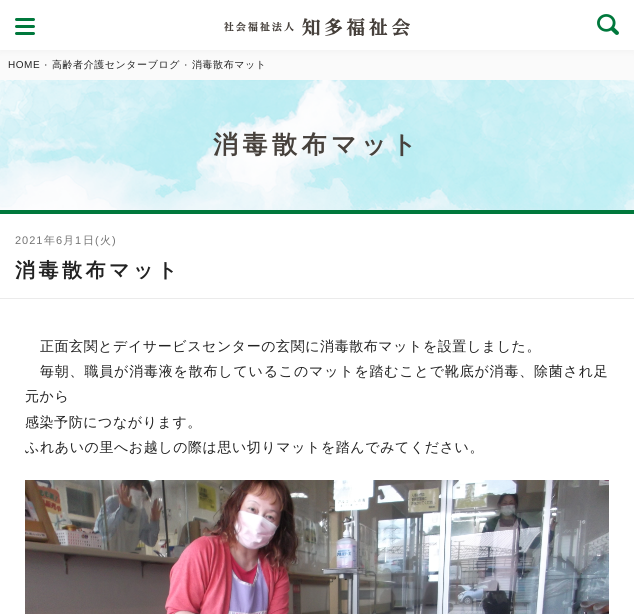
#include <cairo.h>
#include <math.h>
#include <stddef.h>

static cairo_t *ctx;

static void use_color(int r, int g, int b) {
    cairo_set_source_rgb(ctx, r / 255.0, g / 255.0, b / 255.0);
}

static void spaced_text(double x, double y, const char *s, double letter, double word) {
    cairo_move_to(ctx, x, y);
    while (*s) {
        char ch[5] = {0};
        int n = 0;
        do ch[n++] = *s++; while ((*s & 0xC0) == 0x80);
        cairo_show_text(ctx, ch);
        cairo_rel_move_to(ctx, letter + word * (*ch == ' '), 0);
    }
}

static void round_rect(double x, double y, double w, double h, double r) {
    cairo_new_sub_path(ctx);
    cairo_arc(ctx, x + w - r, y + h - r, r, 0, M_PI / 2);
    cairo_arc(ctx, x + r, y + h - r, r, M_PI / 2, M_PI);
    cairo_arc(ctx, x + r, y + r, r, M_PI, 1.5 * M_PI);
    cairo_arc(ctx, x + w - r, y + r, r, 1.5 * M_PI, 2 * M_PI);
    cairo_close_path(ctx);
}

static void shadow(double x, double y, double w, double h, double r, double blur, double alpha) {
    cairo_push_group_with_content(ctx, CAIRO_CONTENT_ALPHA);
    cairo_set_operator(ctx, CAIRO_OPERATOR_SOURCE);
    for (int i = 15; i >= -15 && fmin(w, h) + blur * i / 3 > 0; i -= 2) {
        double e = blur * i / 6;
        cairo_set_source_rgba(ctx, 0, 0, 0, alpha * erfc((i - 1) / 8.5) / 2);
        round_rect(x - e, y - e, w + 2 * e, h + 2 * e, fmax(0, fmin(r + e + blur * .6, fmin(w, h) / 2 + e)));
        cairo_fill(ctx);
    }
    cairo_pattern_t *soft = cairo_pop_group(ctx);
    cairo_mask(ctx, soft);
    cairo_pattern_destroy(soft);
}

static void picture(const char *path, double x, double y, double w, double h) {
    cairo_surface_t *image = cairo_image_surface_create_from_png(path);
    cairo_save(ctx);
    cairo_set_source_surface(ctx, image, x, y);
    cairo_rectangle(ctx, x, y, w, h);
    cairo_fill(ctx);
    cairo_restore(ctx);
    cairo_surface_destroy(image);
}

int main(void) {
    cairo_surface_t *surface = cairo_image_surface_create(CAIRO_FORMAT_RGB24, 634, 614);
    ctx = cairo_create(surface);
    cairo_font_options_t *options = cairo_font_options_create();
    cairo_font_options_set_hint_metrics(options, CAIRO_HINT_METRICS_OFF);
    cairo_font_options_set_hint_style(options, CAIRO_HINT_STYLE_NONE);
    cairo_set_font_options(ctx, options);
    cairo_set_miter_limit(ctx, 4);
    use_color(255, 255, 255);
    cairo_paint(ctx);
    use_color(250, 250, 250);
    cairo_rectangle(ctx, 0, 50, 634, 30);
    cairo_fill(ctx);
    use_color(0, 0, 0);
    shadow(0, 0, 634, 50, 0, 4, 0.05);
    use_color(255, 255, 255);
    cairo_rectangle(ctx, 0, 0, 634, 50);
    cairo_fill(ctx);
    use_color(0, 120, 60);
    round_rect(15, 25, 20, 3, 1.5);
    cairo_fill(ctx);
    round_rect(15, 18, 20, 3, 1.5);
    cairo_fill(ctx);
    round_rect(15, 32, 20, 3, 1.5);
    cairo_fill(ctx);
    picture("img1.png", 597, 14, 22, 21);
    picture("img2.png", 224, 18, 186, 18);
    cairo_select_font_face(ctx, "Liberation Sans", CAIRO_FONT_SLANT_NORMAL, CAIRO_FONT_WEIGHT_NORMAL);
    cairo_set_font_size(ctx, 10);
    use_color(34, 34, 34);
    spaced_text(8, 68, "HOME", 0.55, 0);
    use_color(115, 115, 115);
    cairo_new_path(ctx);
    cairo_move_to(ctx, 45, 66);
    cairo_line_to(ctx, 45, 64);
    cairo_line_to(ctx, 47, 65);
    cairo_close_path(ctx);
    cairo_fill(ctx);
    cairo_select_font_face(ctx, "WenQuanYi Zen Hei Medium", CAIRO_FONT_SLANT_NORMAL, CAIRO_FONT_WEIGHT_NORMAL);
    use_color(34, 34, 34);
    spaced_text(52, 68, "高齢者介護センターブログ", 0.55, 0);
    use_color(115, 115, 115);
    cairo_new_path(ctx);
    cairo_move_to(ctx, 185, 66);
    cairo_line_to(ctx, 185, 64);
    cairo_line_to(ctx, 187, 65);
    cairo_close_path(ctx);
    cairo_fill(ctx);
    use_color(34, 34, 34);
    spaced_text(192, 68, "消毒散布マット", 0.55, 0);
    picture("img3.png", 0, 80, 634, 130);
    cairo_select_font_face(ctx, "WenQuanYi Zen Hei", CAIRO_FONT_SLANT_NORMAL, CAIRO_FONT_WEIGHT_BOLD);
    cairo_set_font_size(ctx, 25);
    use_color(71, 65, 60);
    spaced_text(213, 153, "消毒散布マット", 4.5, 0);
    use_color(0, 120, 60);
    cairo_rectangle(ctx, 0, 210, 634, 4);
    cairo_fill(ctx);
    use_color(235, 235, 235);
    cairo_rectangle(ctx, 0, 298, 634, 1);
    cairo_fill(ctx);
    cairo_select_font_face(ctx, "Liberation Sans", CAIRO_FONT_SLANT_NORMAL, CAIRO_FONT_WEIGHT_NORMAL);
    cairo_set_font_size(ctx, 11);
    use_color(115, 115, 115);
    spaced_text(15, 244, "2021", 1, 0);
    cairo_select_font_face(ctx, "WenQuanYi Zen Hei Medium", CAIRO_FONT_SLANT_NORMAL, CAIRO_FONT_WEIGHT_NORMAL);
    spaced_text(44, 244, "年", 1, 0);
    cairo_select_font_face(ctx, "Liberation Sans", CAIRO_FONT_SLANT_NORMAL, CAIRO_FONT_WEIGHT_NORMAL);
    spaced_text(56, 244, "6", 1, 0);
    cairo_select_font_face(ctx, "WenQuanYi Zen Hei Medium", CAIRO_FONT_SLANT_NORMAL, CAIRO_FONT_WEIGHT_NORMAL);
    spaced_text(63, 244, "月", 1, 0);
    cairo_select_font_face(ctx, "Liberation Sans", CAIRO_FONT_SLANT_NORMAL, CAIRO_FONT_WEIGHT_NORMAL);
    spaced_text(75, 244, "1", 1, 0);
    cairo_select_font_face(ctx, "WenQuanYi Zen Hei Medium", CAIRO_FONT_SLANT_NORMAL, CAIRO_FONT_WEIGHT_NORMAL);
    spaced_text(83, 244, "日", 1, 0);
    cairo_select_font_face(ctx, "Liberation Sans", CAIRO_FONT_SLANT_NORMAL, CAIRO_FONT_WEIGHT_NORMAL);
    spaced_text(95, 244, "(", 1, 0);
    cairo_select_font_face(ctx, "WenQuanYi Zen Hei Medium", CAIRO_FONT_SLANT_NORMAL, CAIRO_FONT_WEIGHT_NORMAL);
    spaced_text(100, 244, "火", 1, 0);
    cairo_select_font_face(ctx, "Liberation Sans", CAIRO_FONT_SLANT_NORMAL, CAIRO_FONT_WEIGHT_NORMAL);
    spaced_text(112, 244, ")", 1, 0);
    cairo_select_font_face(ctx, "WenQuanYi Zen Hei", CAIRO_FONT_SLANT_NORMAL, CAIRO_FONT_WEIGHT_BOLD);
    cairo_set_font_size(ctx, 20);
    use_color(34, 34, 34);
    spaced_text(15, 277, "消毒散布マット", 3.5, 0);
    cairo_select_font_face(ctx, "WenQuanYi Zen Hei Medium", CAIRO_FONT_SLANT_NORMAL, CAIRO_FONT_WEIGHT_NORMAL);
    cairo_set_font_size(ctx, 14);
    spaced_text(40, 351, "正面玄関とデイサービスセンターの玄関に消毒散布マットを設置しました。", 0.55, 0);
    spaced_text(40, 376, "毎朝、職員が消毒液を散布しているこのマットを踏むことで靴底が消毒、除菌され足", 0.8, 0);
    spaced_text(25, 401, "元から", 0.55, 0);
    spaced_text(25, 427, "感染予防につながります。", 0.55, 0);
    spaced_text(25, 452, "ふれあいの里へお越しの際は思い切りマットを踏んでみてください。", 0.55, 0);
    picture("img4.png", 25, 480, 584, 134);
    cairo_surface_write_to_png(surface, "result.png");
    cairo_font_options_destroy(options);
    cairo_destroy(ctx);
    cairo_surface_destroy(surface);
    return 0;
}
